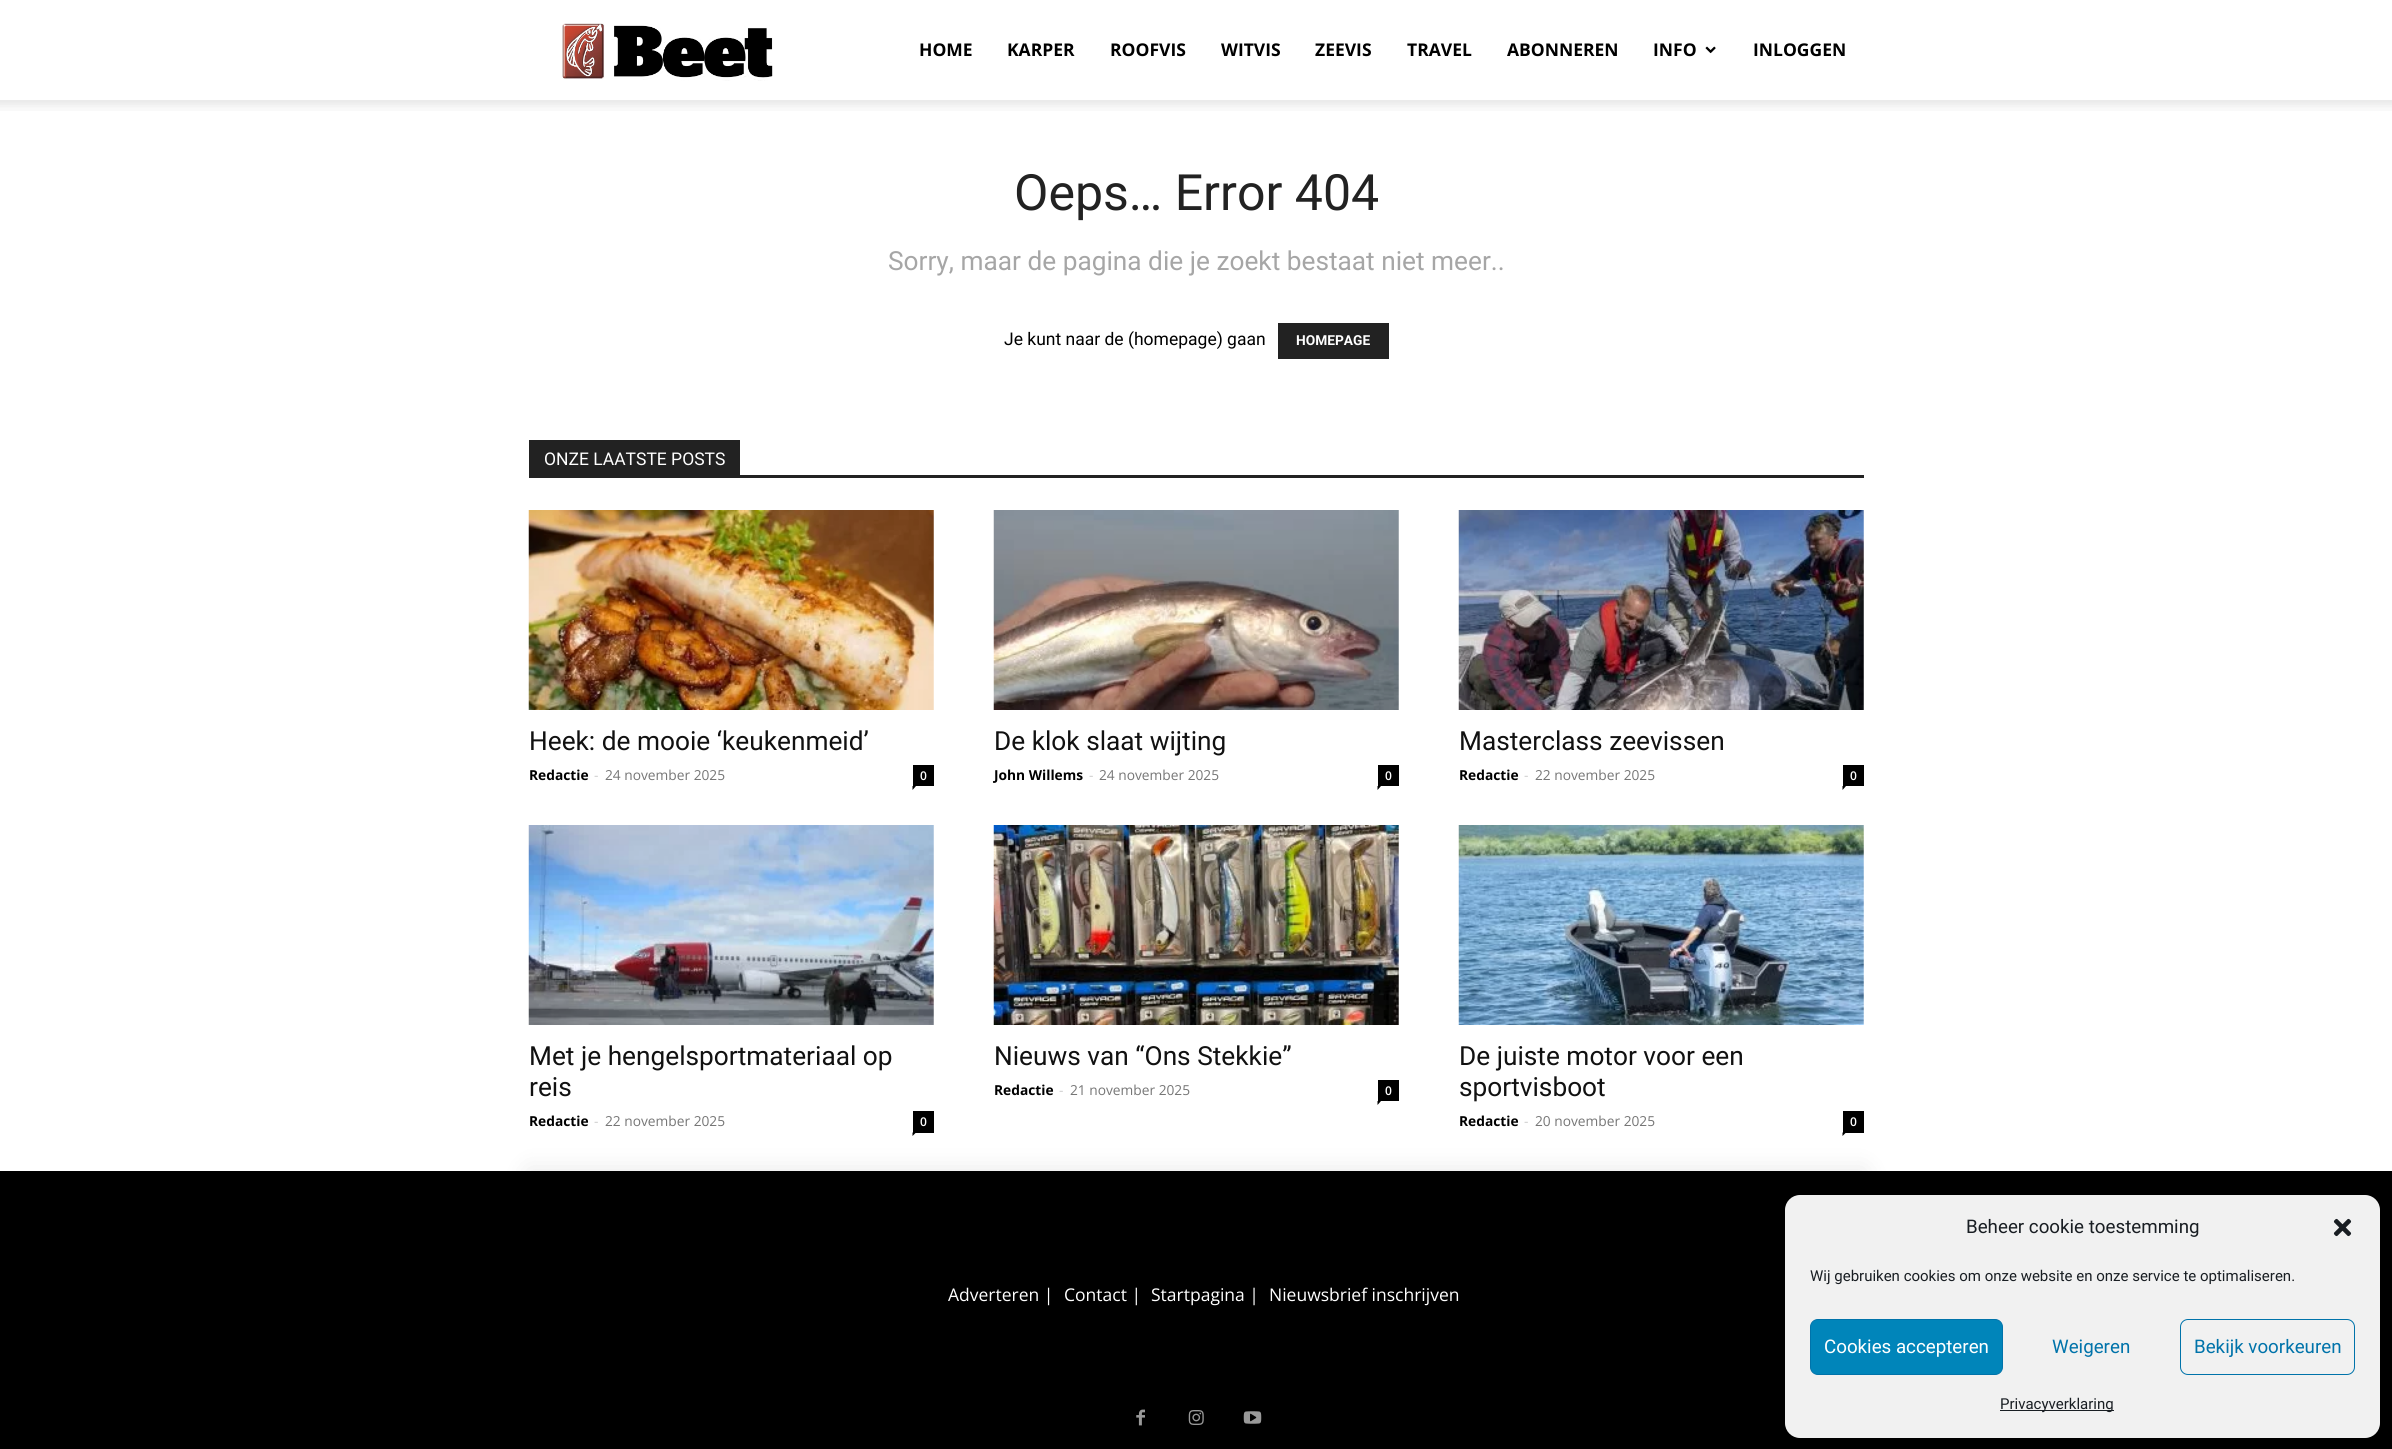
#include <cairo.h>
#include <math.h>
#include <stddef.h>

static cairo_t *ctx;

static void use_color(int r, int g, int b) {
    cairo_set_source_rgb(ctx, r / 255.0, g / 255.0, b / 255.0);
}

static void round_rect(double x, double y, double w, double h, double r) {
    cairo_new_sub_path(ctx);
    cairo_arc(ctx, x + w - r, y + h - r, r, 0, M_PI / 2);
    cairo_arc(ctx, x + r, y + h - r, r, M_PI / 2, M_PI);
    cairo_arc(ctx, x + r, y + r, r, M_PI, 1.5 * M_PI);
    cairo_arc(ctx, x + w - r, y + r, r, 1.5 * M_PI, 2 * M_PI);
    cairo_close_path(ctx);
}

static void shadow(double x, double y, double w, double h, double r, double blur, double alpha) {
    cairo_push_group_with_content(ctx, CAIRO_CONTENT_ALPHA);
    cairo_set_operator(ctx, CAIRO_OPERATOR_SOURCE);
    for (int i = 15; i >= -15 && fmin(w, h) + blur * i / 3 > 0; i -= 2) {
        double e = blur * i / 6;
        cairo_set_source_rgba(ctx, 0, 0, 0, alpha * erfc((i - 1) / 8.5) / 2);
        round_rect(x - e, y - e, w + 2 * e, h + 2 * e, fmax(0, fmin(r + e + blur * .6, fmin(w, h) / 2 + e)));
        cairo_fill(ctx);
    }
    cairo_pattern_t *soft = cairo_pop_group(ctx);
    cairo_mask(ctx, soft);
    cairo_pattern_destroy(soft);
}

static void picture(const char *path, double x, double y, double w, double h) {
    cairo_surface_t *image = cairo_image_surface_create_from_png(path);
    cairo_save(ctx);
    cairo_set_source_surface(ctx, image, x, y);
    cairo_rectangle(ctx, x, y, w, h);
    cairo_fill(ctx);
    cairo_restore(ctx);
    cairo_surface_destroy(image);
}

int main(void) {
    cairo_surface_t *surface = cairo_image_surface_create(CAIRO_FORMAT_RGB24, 2392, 1449);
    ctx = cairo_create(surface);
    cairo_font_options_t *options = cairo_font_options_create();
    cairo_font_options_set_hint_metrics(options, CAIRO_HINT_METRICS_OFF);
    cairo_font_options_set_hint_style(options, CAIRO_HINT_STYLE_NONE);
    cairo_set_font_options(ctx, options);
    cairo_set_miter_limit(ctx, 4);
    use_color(255, 255, 255);
    cairo_paint(ctx);
    picture("img1.png", 562, 23, 211, 58);
    cairo_select_font_face(ctx, "Open Sans", CAIRO_FONT_SLANT_NORMAL, CAIRO_FONT_WEIGHT_BOLD);
    cairo_set_font_size(ctx, 17.5);
    use_color(0, 0, 0);
    cairo_move_to(ctx, 919, 56);
    cairo_show_text(ctx, "HOME");
    cairo_move_to(ctx, 1007, 56);
    cairo_show_text(ctx, "KARPER");
    cairo_move_to(ctx, 1110, 56);
    cairo_show_text(ctx, "ROOFVIS");
    cairo_move_to(ctx, 1221, 56);
    cairo_show_text(ctx, "WITVIS");
    cairo_move_to(ctx, 1315, 56);
    cairo_show_text(ctx, "ZEEVIS");
    cairo_move_to(ctx, 1407, 56);
    cairo_show_text(ctx, "TRAVEL");
    cairo_move_to(ctx, 1507, 56);
    cairo_show_text(ctx, "ABONNEREN");
    cairo_move_to(ctx, 1653, 56);
    cairo_show_text(ctx, "INFO");
    picture("img2.png", 1705, 46, 11, 8);
    cairo_move_to(ctx, 1753, 56);
    cairo_show_text(ctx, "INLOGGEN");
    picture("img3.png", 0, 100, 2392, 11);
    cairo_select_font_face(ctx, "Roboto", CAIRO_FONT_SLANT_NORMAL, CAIRO_FONT_WEIGHT_NORMAL);
    cairo_set_font_size(ctx, 50);
    use_color(34, 34, 34);
    cairo_move_to(ctx, 1014, 210);
    cairo_show_text(ctx, "Oeps… Error 404");
    cairo_set_font_size(ctx, 26.25);
    use_color(166, 166, 166);
    cairo_move_to(ctx, 888, 270);
    cairo_show_text(ctx, "Sorry, maar de pagina die je zoekt bestaat niet meer..");
    cairo_set_font_size(ctx, 17.5);
    use_color(0, 0, 0);
    cairo_move_to(ctx, 1004, 345);
    cairo_show_text(ctx, "Je kunt naar de (homepage) gaan");
    use_color(34, 34, 34);
    cairo_rectangle(ctx, 1278, 323, 111, 36);
    cairo_fill(ctx);
    cairo_select_font_face(ctx, "Roboto", CAIRO_FONT_SLANT_NORMAL, CAIRO_FONT_WEIGHT_BOLD);
    cairo_set_font_size(ctx, 13.75);
    use_color(255, 255, 255);
    cairo_move_to(ctx, 1296, 345);
    cairo_show_text(ctx, "HOMEPAGE");
    use_color(34, 34, 34);
    cairo_rectangle(ctx, 529, 475, 1335, 3);
    cairo_fill(ctx);
    cairo_rectangle(ctx, 529, 440, 211, 35);
    cairo_fill(ctx);
    cairo_select_font_face(ctx, "Roboto", CAIRO_FONT_SLANT_NORMAL, CAIRO_FONT_WEIGHT_NORMAL);
    cairo_set_font_size(ctx, 17.5);
    use_color(255, 255, 255);
    cairo_move_to(ctx, 544, 465);
    cairo_show_text(ctx, "ONZE LAATSTE POSTS");
    picture("img4.png", 528, 510, 406, 200);
    cairo_set_font_size(ctx, 26.25);
    use_color(17, 17, 17);
    cairo_move_to(ctx, 529, 750);
    cairo_show_text(ctx, "Heek: de mooie ‘keukenmeid’");
    cairo_select_font_face(ctx, "Open Sans", CAIRO_FONT_SLANT_NORMAL, CAIRO_FONT_WEIGHT_BOLD);
    cairo_set_font_size(ctx, 13.75);
    use_color(0, 0, 0);
    cairo_move_to(ctx, 529, 780);
    cairo_show_text(ctx, "Redactie");
    cairo_select_font_face(ctx, "Open Sans", CAIRO_FONT_SLANT_NORMAL, CAIRO_FONT_WEIGHT_NORMAL);
    use_color(204, 204, 204);
    cairo_move_to(ctx, 594, 780);
    cairo_show_text(ctx, "-");
    use_color(118, 118, 118);
    cairo_move_to(ctx, 605, 780);
    cairo_show_text(ctx, "24 november 2025");
    use_color(0, 0, 0);
    cairo_rectangle(ctx, 913, 765, 21, 21);
    cairo_fill(ctx);
    cairo_select_font_face(ctx, "Open Sans SemiBold", CAIRO_FONT_SLANT_NORMAL, CAIRO_FONT_WEIGHT_NORMAL);
    cairo_set_font_size(ctx, 12);
    use_color(255, 255, 255);
    cairo_move_to(ctx, 920, 780);
    cairo_show_text(ctx, "0");
    use_color(0, 0, 0);
    cairo_new_path(ctx);
    cairo_move_to(ctx, 912.5, 786);
    cairo_line_to(ctx, 916, 786);
    cairo_line_to(ctx, 912.5, 790);
    cairo_close_path(ctx);
    cairo_fill(ctx);
    picture("img5.png", 993, 510, 406, 200);
    cairo_select_font_face(ctx, "Roboto", CAIRO_FONT_SLANT_NORMAL, CAIRO_FONT_WEIGHT_NORMAL);
    cairo_set_font_size(ctx, 26.25);
    use_color(17, 17, 17);
    cairo_move_to(ctx, 994, 750);
    cairo_show_text(ctx, "De klok slaat wijting");
    cairo_select_font_face(ctx, "Open Sans", CAIRO_FONT_SLANT_NORMAL, CAIRO_FONT_WEIGHT_BOLD);
    cairo_set_font_size(ctx, 13.75);
    use_color(0, 0, 0);
    cairo_move_to(ctx, 994, 780);
    cairo_show_text(ctx, "John Willems");
    cairo_select_font_face(ctx, "Open Sans", CAIRO_FONT_SLANT_NORMAL, CAIRO_FONT_WEIGHT_NORMAL);
    use_color(204, 204, 204);
    cairo_move_to(ctx, 1089, 780);
    cairo_show_text(ctx, "-");
    use_color(118, 118, 118);
    cairo_move_to(ctx, 1099, 780);
    cairo_show_text(ctx, "24 november 2025");
    use_color(0, 0, 0);
    cairo_rectangle(ctx, 1378, 765, 21, 21);
    cairo_fill(ctx);
    cairo_select_font_face(ctx, "Open Sans SemiBold", CAIRO_FONT_SLANT_NORMAL, CAIRO_FONT_WEIGHT_NORMAL);
    cairo_set_font_size(ctx, 12);
    use_color(255, 255, 255);
    cairo_move_to(ctx, 1385, 780);
    cairo_show_text(ctx, "0");
    use_color(0, 0, 0);
    cairo_new_path(ctx);
    cairo_move_to(ctx, 1377.5, 786);
    cairo_line_to(ctx, 1381, 786);
    cairo_line_to(ctx, 1377.5, 790);
    cairo_close_path(ctx);
    cairo_fill(ctx);
    picture("img6.png", 1458, 510, 406, 200);
    cairo_select_font_face(ctx, "Roboto", CAIRO_FONT_SLANT_NORMAL, CAIRO_FONT_WEIGHT_NORMAL);
    cairo_set_font_size(ctx, 26.25);
    use_color(17, 17, 17);
    cairo_move_to(ctx, 1459, 750);
    cairo_show_text(ctx, "Masterclass zeevissen");
    cairo_select_font_face(ctx, "Open Sans", CAIRO_FONT_SLANT_NORMAL, CAIRO_FONT_WEIGHT_BOLD);
    cairo_set_font_size(ctx, 13.75);
    use_color(0, 0, 0);
    cairo_move_to(ctx, 1459, 780);
    cairo_show_text(ctx, "Redactie");
    cairo_select_font_face(ctx, "Open Sans", CAIRO_FONT_SLANT_NORMAL, CAIRO_FONT_WEIGHT_NORMAL);
    use_color(204, 204, 204);
    cairo_move_to(ctx, 1524, 780);
    cairo_show_text(ctx, "-");
    use_color(118, 118, 118);
    cairo_move_to(ctx, 1535, 780);
    cairo_show_text(ctx, "22 november 2025");
    use_color(0, 0, 0);
    cairo_rectangle(ctx, 1843, 765, 21, 21);
    cairo_fill(ctx);
    cairo_select_font_face(ctx, "Open Sans SemiBold", CAIRO_FONT_SLANT_NORMAL, CAIRO_FONT_WEIGHT_NORMAL);
    cairo_set_font_size(ctx, 12);
    use_color(255, 255, 255);
    cairo_move_to(ctx, 1850, 780);
    cairo_show_text(ctx, "0");
    use_color(0, 0, 0);
    cairo_new_path(ctx);
    cairo_move_to(ctx, 1842.5, 786);
    cairo_line_to(ctx, 1846, 786);
    cairo_line_to(ctx, 1842.5, 790);
    cairo_close_path(ctx);
    cairo_fill(ctx);
    picture("img7.png", 528, 825, 406, 200);
    cairo_select_font_face(ctx, "Roboto", CAIRO_FONT_SLANT_NORMAL, CAIRO_FONT_WEIGHT_NORMAL);
    cairo_set_font_size(ctx, 26.25);
    use_color(17, 17, 17);
    cairo_move_to(ctx, 529, 1065);
    cairo_show_text(ctx, "Met je hengelsportmateriaal op");
    cairo_move_to(ctx, 529, 1096);
    cairo_show_text(ctx, "reis");
    cairo_select_font_face(ctx, "Open Sans", CAIRO_FONT_SLANT_NORMAL, CAIRO_FONT_WEIGHT_BOLD);
    cairo_set_font_size(ctx, 13.75);
    use_color(0, 0, 0);
    cairo_move_to(ctx, 529, 1126);
    cairo_show_text(ctx, "Redactie");
    cairo_select_font_face(ctx, "Open Sans", CAIRO_FONT_SLANT_NORMAL, CAIRO_FONT_WEIGHT_NORMAL);
    use_color(204, 204, 204);
    cairo_move_to(ctx, 594, 1126);
    cairo_show_text(ctx, "-");
    use_color(118, 118, 118);
    cairo_move_to(ctx, 605, 1126);
    cairo_show_text(ctx, "22 november 2025");
    use_color(0, 0, 0);
    cairo_rectangle(ctx, 913, 1111, 21, 22);
    cairo_fill(ctx);
    cairo_select_font_face(ctx, "Open Sans SemiBold", CAIRO_FONT_SLANT_NORMAL, CAIRO_FONT_WEIGHT_NORMAL);
    cairo_set_font_size(ctx, 12);
    use_color(255, 255, 255);
    cairo_move_to(ctx, 920, 1126);
    cairo_show_text(ctx, "0");
    use_color(0, 0, 0);
    cairo_new_path(ctx);
    cairo_move_to(ctx, 912.5, 1132.5);
    cairo_line_to(ctx, 916, 1132.5);
    cairo_line_to(ctx, 912.5, 1136);
    cairo_close_path(ctx);
    cairo_fill(ctx);
    picture("img8.png", 993, 825, 406, 200);
    cairo_select_font_face(ctx, "Roboto", CAIRO_FONT_SLANT_NORMAL, CAIRO_FONT_WEIGHT_NORMAL);
    cairo_set_font_size(ctx, 26.25);
    use_color(17, 17, 17);
    cairo_move_to(ctx, 994, 1065);
    cairo_show_text(ctx, "Nieuws van “Ons Stekkie”");
    cairo_select_font_face(ctx, "Open Sans", CAIRO_FONT_SLANT_NORMAL, CAIRO_FONT_WEIGHT_BOLD);
    cairo_set_font_size(ctx, 13.75);
    use_color(0, 0, 0);
    cairo_move_to(ctx, 994, 1095);
    cairo_show_text(ctx, "Redactie");
    cairo_select_font_face(ctx, "Open Sans", CAIRO_FONT_SLANT_NORMAL, CAIRO_FONT_WEIGHT_NORMAL);
    use_color(204, 204, 204);
    cairo_move_to(ctx, 1059, 1095);
    cairo_show_text(ctx, "-");
    use_color(118, 118, 118);
    cairo_move_to(ctx, 1070, 1095);
    cairo_show_text(ctx, "21 november 2025");
    use_color(0, 0, 0);
    cairo_rectangle(ctx, 1378, 1080, 21, 21);
    cairo_fill(ctx);
    cairo_select_font_face(ctx, "Open Sans SemiBold", CAIRO_FONT_SLANT_NORMAL, CAIRO_FONT_WEIGHT_NORMAL);
    cairo_set_font_size(ctx, 12);
    use_color(255, 255, 255);
    cairo_move_to(ctx, 1385, 1095);
    cairo_show_text(ctx, "0");
    use_color(0, 0, 0);
    cairo_new_path(ctx);
    cairo_move_to(ctx, 1377.5, 1101);
    cairo_line_to(ctx, 1381, 1101);
    cairo_line_to(ctx, 1377.5, 1105);
    cairo_close_path(ctx);
    cairo_fill(ctx);
    picture("img9.png", 1458, 825, 406, 200);
    cairo_select_font_face(ctx, "Roboto", CAIRO_FONT_SLANT_NORMAL, CAIRO_FONT_WEIGHT_NORMAL);
    cairo_set_font_size(ctx, 26.25);
    use_color(17, 17, 17);
    cairo_move_to(ctx, 1459, 1065);
    cairo_show_text(ctx, "De juiste motor voor een");
    cairo_move_to(ctx, 1459, 1096);
    cairo_show_text(ctx, "sportvisboot");
    cairo_select_font_face(ctx, "Open Sans", CAIRO_FONT_SLANT_NORMAL, CAIRO_FONT_WEIGHT_BOLD);
    cairo_set_font_size(ctx, 13.75);
    use_color(0, 0, 0);
    cairo_move_to(ctx, 1459, 1126);
    cairo_show_text(ctx, "Redactie");
    cairo_select_font_face(ctx, "Open Sans", CAIRO_FONT_SLANT_NORMAL, CAIRO_FONT_WEIGHT_NORMAL);
    use_color(204, 204, 204);
    cairo_move_to(ctx, 1524, 1126);
    cairo_show_text(ctx, "-");
    use_color(118, 118, 118);
    cairo_move_to(ctx, 1535, 1126);
    cairo_show_text(ctx, "20 november 2025");
    use_color(0, 0, 0);
    cairo_rectangle(ctx, 1843, 1111, 21, 22);
    cairo_fill(ctx);
    cairo_select_font_face(ctx, "Open Sans SemiBold", CAIRO_FONT_SLANT_NORMAL, CAIRO_FONT_WEIGHT_NORMAL);
    cairo_set_font_size(ctx, 12);
    use_color(255, 255, 255);
    cairo_move_to(ctx, 1850, 1126);
    cairo_show_text(ctx, "0");
    use_color(0, 0, 0);
    cairo_new_path(ctx);
    cairo_move_to(ctx, 1842.5, 1132.5);
    cairo_line_to(ctx, 1846, 1132.5);
    cairo_line_to(ctx, 1842.5, 1136);
    cairo_close_path(ctx);
    cairo_fill(ctx);
    use_color(0, 0, 0);
    shadow(529, 1171, 1335, 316, 0, 12.5, 0.1);
    use_color(0, 0, 0);
    cairo_rectangle(ctx, 0, 1171, 2392, 278);
    cairo_fill(ctx);
    cairo_select_font_face(ctx, "Open Sans", CAIRO_FONT_SLANT_NORMAL, CAIRO_FONT_WEIGHT_NORMAL);
    cairo_set_font_size(ctx, 17.5);
    use_color(255, 255, 255);
    cairo_move_to(ctx, 948, 1301);
    cairo_show_text(ctx, "Adverteren |");
    cairo_move_to(ctx, 1064, 1301);
    cairo_show_text(ctx, "Contact |");
    cairo_move_to(ctx, 1151, 1301);
    cairo_show_text(ctx, "Startpagina |");
    cairo_move_to(ctx, 1269, 1301);
    cairo_show_text(ctx, "Nieuwsbrief inschrijven");
    picture("img10.png", 1136, 1409, 9, 17);
    picture("img11.png", 1188, 1410, 16, 15);
    picture("img12.png", 1243, 1411, 19, 13);
    use_color(241, 241, 241);
    round_rect(1785, 1195, 595, 243, 15);
    cairo_fill(ctx);
    cairo_select_font_face(ctx, "Roboto", CAIRO_FONT_SLANT_NORMAL, CAIRO_FONT_WEIGHT_NORMAL);
    cairo_set_font_size(ctx, 18.75);
    use_color(25, 30, 35);
    cairo_move_to(ctx, 1966, 1233);
    cairo_show_text(ctx, "Beheer cookie toestemming");
    picture("img13.png", 2333, 1218, 19, 19);
    cairo_set_font_size(ctx, 15);
    cairo_move_to(ctx, 1810, 1281);
    cairo_show_text(ctx, "Wij gebruiken cookies om onze website en onze service te optimaliseren.");
    use_color(0, 133, 186);
    round_rect(1810.5, 1319.5, 192, 55, 7.5);
    cairo_fill_preserve(ctx);
    use_color(0, 115, 170);
    cairo_set_line_width(ctx, 1);
    cairo_stroke(ctx);
    cairo_set_font_size(ctx, 18.75);
    use_color(255, 255, 255);
    cairo_move_to(ctx, 1824, 1353);
    cairo_show_text(ctx, "Cookies accepteren");
    use_color(0, 115, 170);
    cairo_move_to(ctx, 2052, 1353);
    cairo_show_text(ctx, "Weigeren");
    round_rect(2180.5, 1319.5, 174, 55, 7.5);
    cairo_stroke(ctx);
    cairo_move_to(ctx, 2194, 1353);
    cairo_show_text(ctx, "Bekijk voorkeuren");
    use_color(25, 30, 35);
    cairo_rectangle(ctx, 2000, 1410, 114, 1);
    cairo_fill(ctx);
    cairo_set_font_size(ctx, 15);
    cairo_move_to(ctx, 2000, 1409);
    cairo_show_text(ctx, "Privacyverklaring");
    cairo_surface_write_to_png(surface, "result.png");
    cairo_font_options_destroy(options);
    cairo_destroy(ctx);
    cairo_surface_destroy(surface);
    return 0;
}
